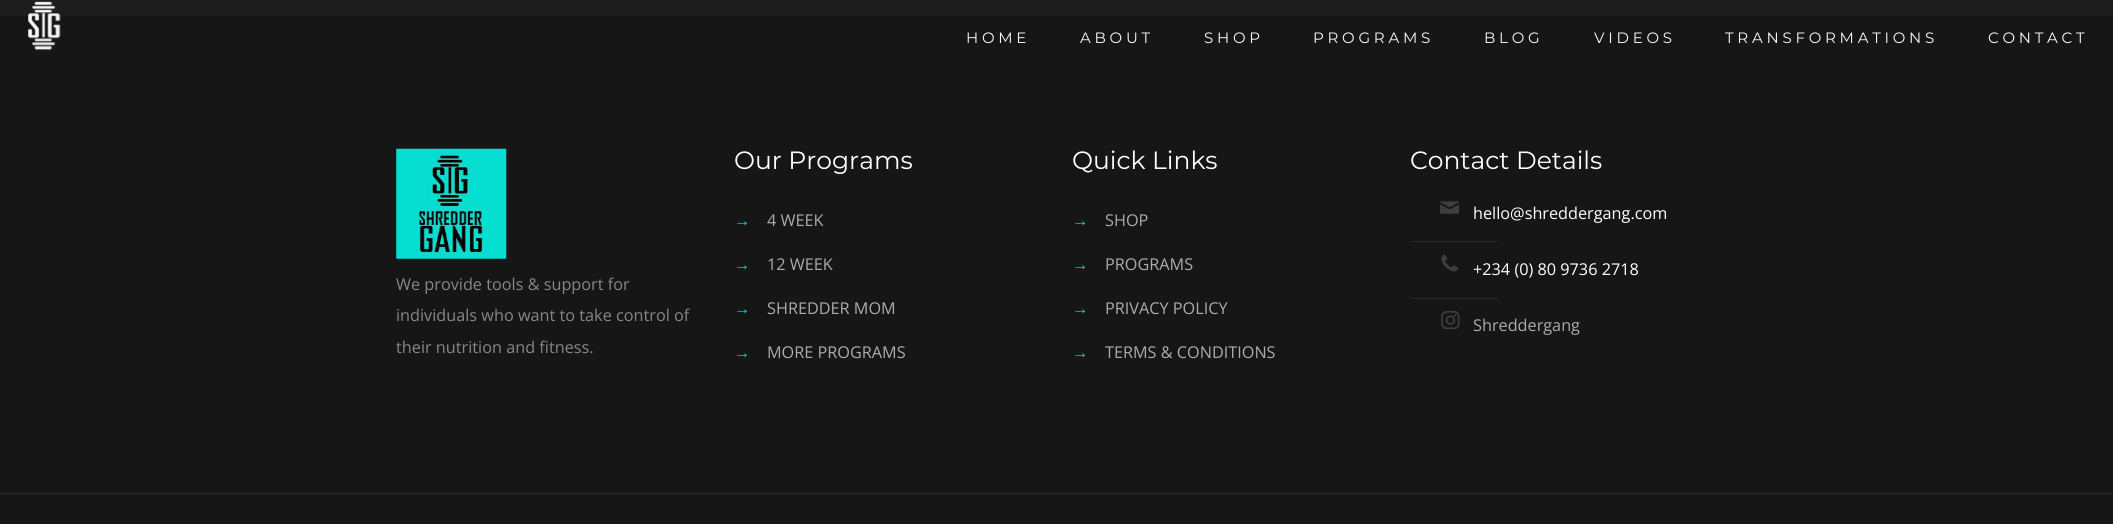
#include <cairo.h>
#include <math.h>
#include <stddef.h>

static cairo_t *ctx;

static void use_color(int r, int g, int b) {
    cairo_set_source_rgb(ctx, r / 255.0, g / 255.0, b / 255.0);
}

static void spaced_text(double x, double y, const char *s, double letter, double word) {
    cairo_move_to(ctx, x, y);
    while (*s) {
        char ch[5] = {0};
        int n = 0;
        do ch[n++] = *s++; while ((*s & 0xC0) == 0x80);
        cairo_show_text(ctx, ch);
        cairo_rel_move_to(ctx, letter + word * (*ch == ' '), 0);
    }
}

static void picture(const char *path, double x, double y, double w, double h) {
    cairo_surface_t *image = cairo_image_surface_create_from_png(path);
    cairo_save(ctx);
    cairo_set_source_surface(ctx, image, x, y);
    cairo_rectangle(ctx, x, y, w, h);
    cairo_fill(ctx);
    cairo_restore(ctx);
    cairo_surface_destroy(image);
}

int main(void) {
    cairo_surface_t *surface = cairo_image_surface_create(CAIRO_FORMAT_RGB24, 2113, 524);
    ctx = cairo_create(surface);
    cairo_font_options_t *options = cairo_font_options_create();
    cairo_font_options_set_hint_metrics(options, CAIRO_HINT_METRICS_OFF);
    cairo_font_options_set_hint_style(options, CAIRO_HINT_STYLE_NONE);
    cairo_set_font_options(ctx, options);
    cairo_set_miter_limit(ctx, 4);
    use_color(29, 29, 29);
    cairo_paint(ctx);
    use_color(22, 22, 22);
    cairo_rectangle(ctx, 0, 16, 2113, 508);
    cairo_fill(ctx);
    picture("img1.png", 28, 1, 33, 50);
    cairo_select_font_face(ctx, "Montserrat", CAIRO_FONT_SLANT_NORMAL, CAIRO_FONT_WEIGHT_NORMAL);
    cairo_set_font_size(ctx, 15);
    use_color(248, 248, 248);
    spaced_text(966, 43, "HOME", 3.75, 0);
    spaced_text(1080, 43, "ABOUT", 3.75, 0);
    spaced_text(1204, 43, "SHOP", 3.75, 0);
    spaced_text(1313, 43, "PROGRAMS", 3.75, 0);
    spaced_text(1484, 43, "BLOG", 3.75, 0);
    spaced_text(1594, 43, "VIDEOS", 3.75, 0);
    spaced_text(1725, 43, "TRANSFORMATIONS", 3.75, 0);
    spaced_text(1988, 43, "CONTACT", 3.75, 0);
    picture("img2.png", 396, 148, 111, 111);
    cairo_select_font_face(ctx, "Open Sans", CAIRO_FONT_SLANT_NORMAL, CAIRO_FONT_WEIGHT_NORMAL);
    cairo_set_font_size(ctx, 16.25);
    use_color(135, 135, 135);
    cairo_move_to(ctx, 396, 290);
    cairo_show_text(ctx, "We provide tools & support for");
    cairo_move_to(ctx, 396, 321);
    cairo_show_text(ctx, "individuals who want to take control of");
    cairo_move_to(ctx, 396, 353);
    cairo_show_text(ctx, "their nutrition and fitness.");
    cairo_select_font_face(ctx, "Montserrat", CAIRO_FONT_SLANT_NORMAL, CAIRO_FONT_WEIGHT_NORMAL);
    cairo_set_font_size(ctx, 25);
    use_color(255, 255, 255);
    cairo_move_to(ctx, 734, 169);
    cairo_show_text(ctx, "Our Programs");
    cairo_select_font_face(ctx, "Liberation Sans", CAIRO_FONT_SLANT_NORMAL, CAIRO_FONT_WEIGHT_NORMAL);
    cairo_set_font_size(ctx, 16.25);
    use_color(2, 226, 215);
    cairo_move_to(ctx, 734, 226);
    cairo_show_text(ctx, "→");
    cairo_select_font_face(ctx, "Open Sans", CAIRO_FONT_SLANT_NORMAL, CAIRO_FONT_WEIGHT_NORMAL);
    use_color(172, 172, 172);
    cairo_move_to(ctx, 767, 226);
    cairo_show_text(ctx, "4 WEEK");
    cairo_select_font_face(ctx, "Liberation Sans", CAIRO_FONT_SLANT_NORMAL, CAIRO_FONT_WEIGHT_NORMAL);
    use_color(2, 226, 215);
    cairo_move_to(ctx, 734, 270);
    cairo_show_text(ctx, "→");
    cairo_select_font_face(ctx, "Open Sans", CAIRO_FONT_SLANT_NORMAL, CAIRO_FONT_WEIGHT_NORMAL);
    use_color(172, 172, 172);
    cairo_move_to(ctx, 767, 270);
    cairo_show_text(ctx, "12 WEEK");
    cairo_select_font_face(ctx, "Liberation Sans", CAIRO_FONT_SLANT_NORMAL, CAIRO_FONT_WEIGHT_NORMAL);
    use_color(2, 226, 215);
    cairo_move_to(ctx, 734, 314);
    cairo_show_text(ctx, "→");
    cairo_select_font_face(ctx, "Open Sans", CAIRO_FONT_SLANT_NORMAL, CAIRO_FONT_WEIGHT_NORMAL);
    use_color(172, 172, 172);
    cairo_move_to(ctx, 767, 314);
    cairo_show_text(ctx, "SHREDDER MOM");
    cairo_select_font_face(ctx, "Liberation Sans", CAIRO_FONT_SLANT_NORMAL, CAIRO_FONT_WEIGHT_NORMAL);
    use_color(2, 226, 215);
    cairo_move_to(ctx, 734, 358);
    cairo_show_text(ctx, "→");
    cairo_select_font_face(ctx, "Open Sans", CAIRO_FONT_SLANT_NORMAL, CAIRO_FONT_WEIGHT_NORMAL);
    use_color(172, 172, 172);
    cairo_move_to(ctx, 767, 358);
    cairo_show_text(ctx, "MORE PROGRAMS");
    cairo_select_font_face(ctx, "Montserrat", CAIRO_FONT_SLANT_NORMAL, CAIRO_FONT_WEIGHT_NORMAL);
    cairo_set_font_size(ctx, 25);
    use_color(255, 255, 255);
    cairo_move_to(ctx, 1072, 169);
    cairo_show_text(ctx, "Quick Links");
    cairo_select_font_face(ctx, "Liberation Sans", CAIRO_FONT_SLANT_NORMAL, CAIRO_FONT_WEIGHT_NORMAL);
    cairo_set_font_size(ctx, 16.25);
    use_color(2, 226, 215);
    cairo_move_to(ctx, 1072, 226);
    cairo_show_text(ctx, "→");
    cairo_select_font_face(ctx, "Open Sans", CAIRO_FONT_SLANT_NORMAL, CAIRO_FONT_WEIGHT_NORMAL);
    use_color(172, 172, 172);
    cairo_move_to(ctx, 1105, 226);
    cairo_show_text(ctx, "SHOP");
    cairo_select_font_face(ctx, "Liberation Sans", CAIRO_FONT_SLANT_NORMAL, CAIRO_FONT_WEIGHT_NORMAL);
    use_color(2, 226, 215);
    cairo_move_to(ctx, 1072, 270);
    cairo_show_text(ctx, "→");
    cairo_select_font_face(ctx, "Open Sans", CAIRO_FONT_SLANT_NORMAL, CAIRO_FONT_WEIGHT_NORMAL);
    use_color(172, 172, 172);
    cairo_move_to(ctx, 1105, 270);
    cairo_show_text(ctx, "PROGRAMS");
    cairo_select_font_face(ctx, "Liberation Sans", CAIRO_FONT_SLANT_NORMAL, CAIRO_FONT_WEIGHT_NORMAL);
    use_color(2, 226, 215);
    cairo_move_to(ctx, 1072, 314);
    cairo_show_text(ctx, "→");
    cairo_select_font_face(ctx, "Open Sans", CAIRO_FONT_SLANT_NORMAL, CAIRO_FONT_WEIGHT_NORMAL);
    use_color(172, 172, 172);
    cairo_move_to(ctx, 1105, 314);
    cairo_show_text(ctx, "PRIVACY POLICY");
    cairo_select_font_face(ctx, "Liberation Sans", CAIRO_FONT_SLANT_NORMAL, CAIRO_FONT_WEIGHT_NORMAL);
    use_color(2, 226, 215);
    cairo_move_to(ctx, 1072, 358);
    cairo_show_text(ctx, "→");
    cairo_select_font_face(ctx, "Open Sans", CAIRO_FONT_SLANT_NORMAL, CAIRO_FONT_WEIGHT_NORMAL);
    use_color(172, 172, 172);
    cairo_move_to(ctx, 1105, 358);
    cairo_show_text(ctx, "TERMS & CONDITIONS");
    cairo_select_font_face(ctx, "Montserrat", CAIRO_FONT_SLANT_NORMAL, CAIRO_FONT_WEIGHT_NORMAL);
    cairo_set_font_size(ctx, 25);
    use_color(255, 255, 255);
    cairo_move_to(ctx, 1410, 169);
    cairo_show_text(ctx, "Contact Details");
    picture("img3.png", 1440, 201, 20, 13);
    cairo_select_font_face(ctx, "Open Sans", CAIRO_FONT_SLANT_NORMAL, CAIRO_FONT_WEIGHT_NORMAL);
    cairo_set_font_size(ctx, 16.25);
    cairo_move_to(ctx, 1473, 219);
    cairo_show_text(ctx, "hello@shreddergang.com");
    use_color(41, 41, 41);
    cairo_rectangle(ctx, 1410, 241, 88, 1);
    cairo_fill(ctx);
    picture("img4.png", 1441, 254, 17, 18);
    use_color(255, 255, 255);
    cairo_move_to(ctx, 1473, 275);
    cairo_show_text(ctx, "+234 (0) 80 9736 2718");
    use_color(41, 41, 41);
    cairo_rectangle(ctx, 1410, 298, 88, 1);
    cairo_fill(ctx);
    picture("img5.png", 1441, 311, 19, 19);
    use_color(172, 172, 172);
    cairo_move_to(ctx, 1473, 331);
    cairo_show_text(ctx, "Shreddergang");
    use_color(45, 45, 45);
    cairo_rectangle(ctx, 0, 493, 2113, 1);
    cairo_fill(ctx);
    cairo_surface_write_to_png(surface, "result.png");
    cairo_font_options_destroy(options);
    cairo_destroy(ctx);
    cairo_surface_destroy(surface);
    return 0;
}
